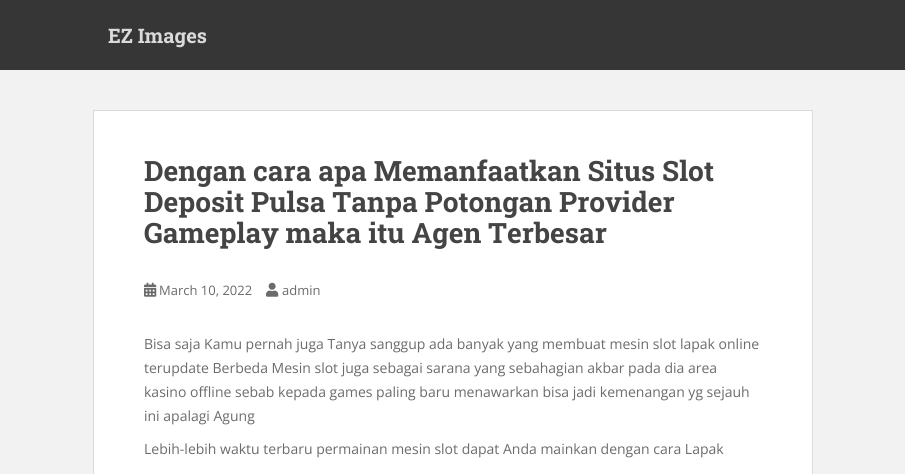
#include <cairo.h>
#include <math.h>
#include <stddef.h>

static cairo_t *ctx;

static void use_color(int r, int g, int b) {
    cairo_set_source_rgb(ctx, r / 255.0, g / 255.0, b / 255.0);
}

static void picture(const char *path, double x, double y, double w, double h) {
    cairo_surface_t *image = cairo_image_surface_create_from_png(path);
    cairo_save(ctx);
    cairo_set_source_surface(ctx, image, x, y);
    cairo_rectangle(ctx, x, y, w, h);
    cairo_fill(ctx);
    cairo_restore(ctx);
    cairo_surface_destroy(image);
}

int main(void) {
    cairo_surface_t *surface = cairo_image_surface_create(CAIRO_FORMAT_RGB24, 905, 474);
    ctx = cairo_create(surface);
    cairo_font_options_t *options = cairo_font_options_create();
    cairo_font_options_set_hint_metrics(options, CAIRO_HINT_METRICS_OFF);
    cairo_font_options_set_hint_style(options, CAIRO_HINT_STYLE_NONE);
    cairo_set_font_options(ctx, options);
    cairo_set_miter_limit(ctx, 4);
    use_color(242, 242, 242);
    cairo_paint(ctx);
    use_color(54, 54, 54);
    cairo_rectangle(ctx, 0, 0, 905, 70);
    cairo_fill(ctx);
    cairo_select_font_face(ctx, "Roboto Slab", CAIRO_FONT_SLANT_NORMAL, CAIRO_FONT_WEIGHT_BOLD);
    cairo_set_font_size(ctx, 20);
    use_color(218, 218, 218);
    cairo_move_to(ctx, 108, 43);
    cairo_show_text(ctx, "EZ Images");
    use_color(255, 255, 255);
    cairo_rectangle(ctx, 93.5, 110.5, 719, 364);
    cairo_fill_preserve(ctx);
    use_color(218, 218, 218);
    cairo_set_line_width(ctx, 1);
    cairo_stroke(ctx);
    cairo_set_font_size(ctx, 28);
    use_color(68, 68, 68);
    cairo_move_to(ctx, 144, 181);
    cairo_show_text(ctx, "Dengan cara apa Memanfaatkan Situs Slot");
    cairo_move_to(ctx, 144, 212);
    cairo_show_text(ctx, "Deposit Pulsa Tanpa Potongan Provider");
    cairo_move_to(ctx, 144, 243);
    cairo_show_text(ctx, "Gameplay maka itu Agen Terbesar");
    picture("img1.png", 144, 282, 13, 15);
    cairo_select_font_face(ctx, "Open Sans", CAIRO_FONT_SLANT_NORMAL, CAIRO_FONT_WEIGHT_NORMAL);
    cairo_set_font_size(ctx, 13);
    use_color(107, 107, 107);
    cairo_move_to(ctx, 159, 295);
    cairo_show_text(ctx, "March 10, 2022");
    picture("img2.png", 266, 282, 13, 15);
    cairo_move_to(ctx, 282, 295);
    cairo_show_text(ctx, "admin");
    cairo_set_font_size(ctx, 14);
    cairo_move_to(ctx, 144, 349);
    cairo_show_text(ctx, "Bisa saja Kamu pernah juga Tanya sanggup ada banyak yang membuat mesin slot lapak online");
    cairo_move_to(ctx, 144, 373);
    cairo_show_text(ctx, "terupdate Berbeda Mesin slot juga sebagai sarana yang sebahagian akbar pada dia area");
    cairo_move_to(ctx, 144, 397);
    cairo_show_text(ctx, "kasino offline sebab kepada games paling baru menawarkan bisa jadi kemenangan yg sejauh");
    cairo_move_to(ctx, 144, 421);
    cairo_show_text(ctx, "ini apalagi Agung");
    cairo_move_to(ctx, 144, 454);
    cairo_show_text(ctx, "Lebih-lebih waktu terbaru permainan mesin slot dapat Anda mainkan dengan cara Lapak");
    cairo_surface_write_to_png(surface, "result.png");
    cairo_font_options_destroy(options);
    cairo_destroy(ctx);
    cairo_surface_destroy(surface);
    return 0;
}
